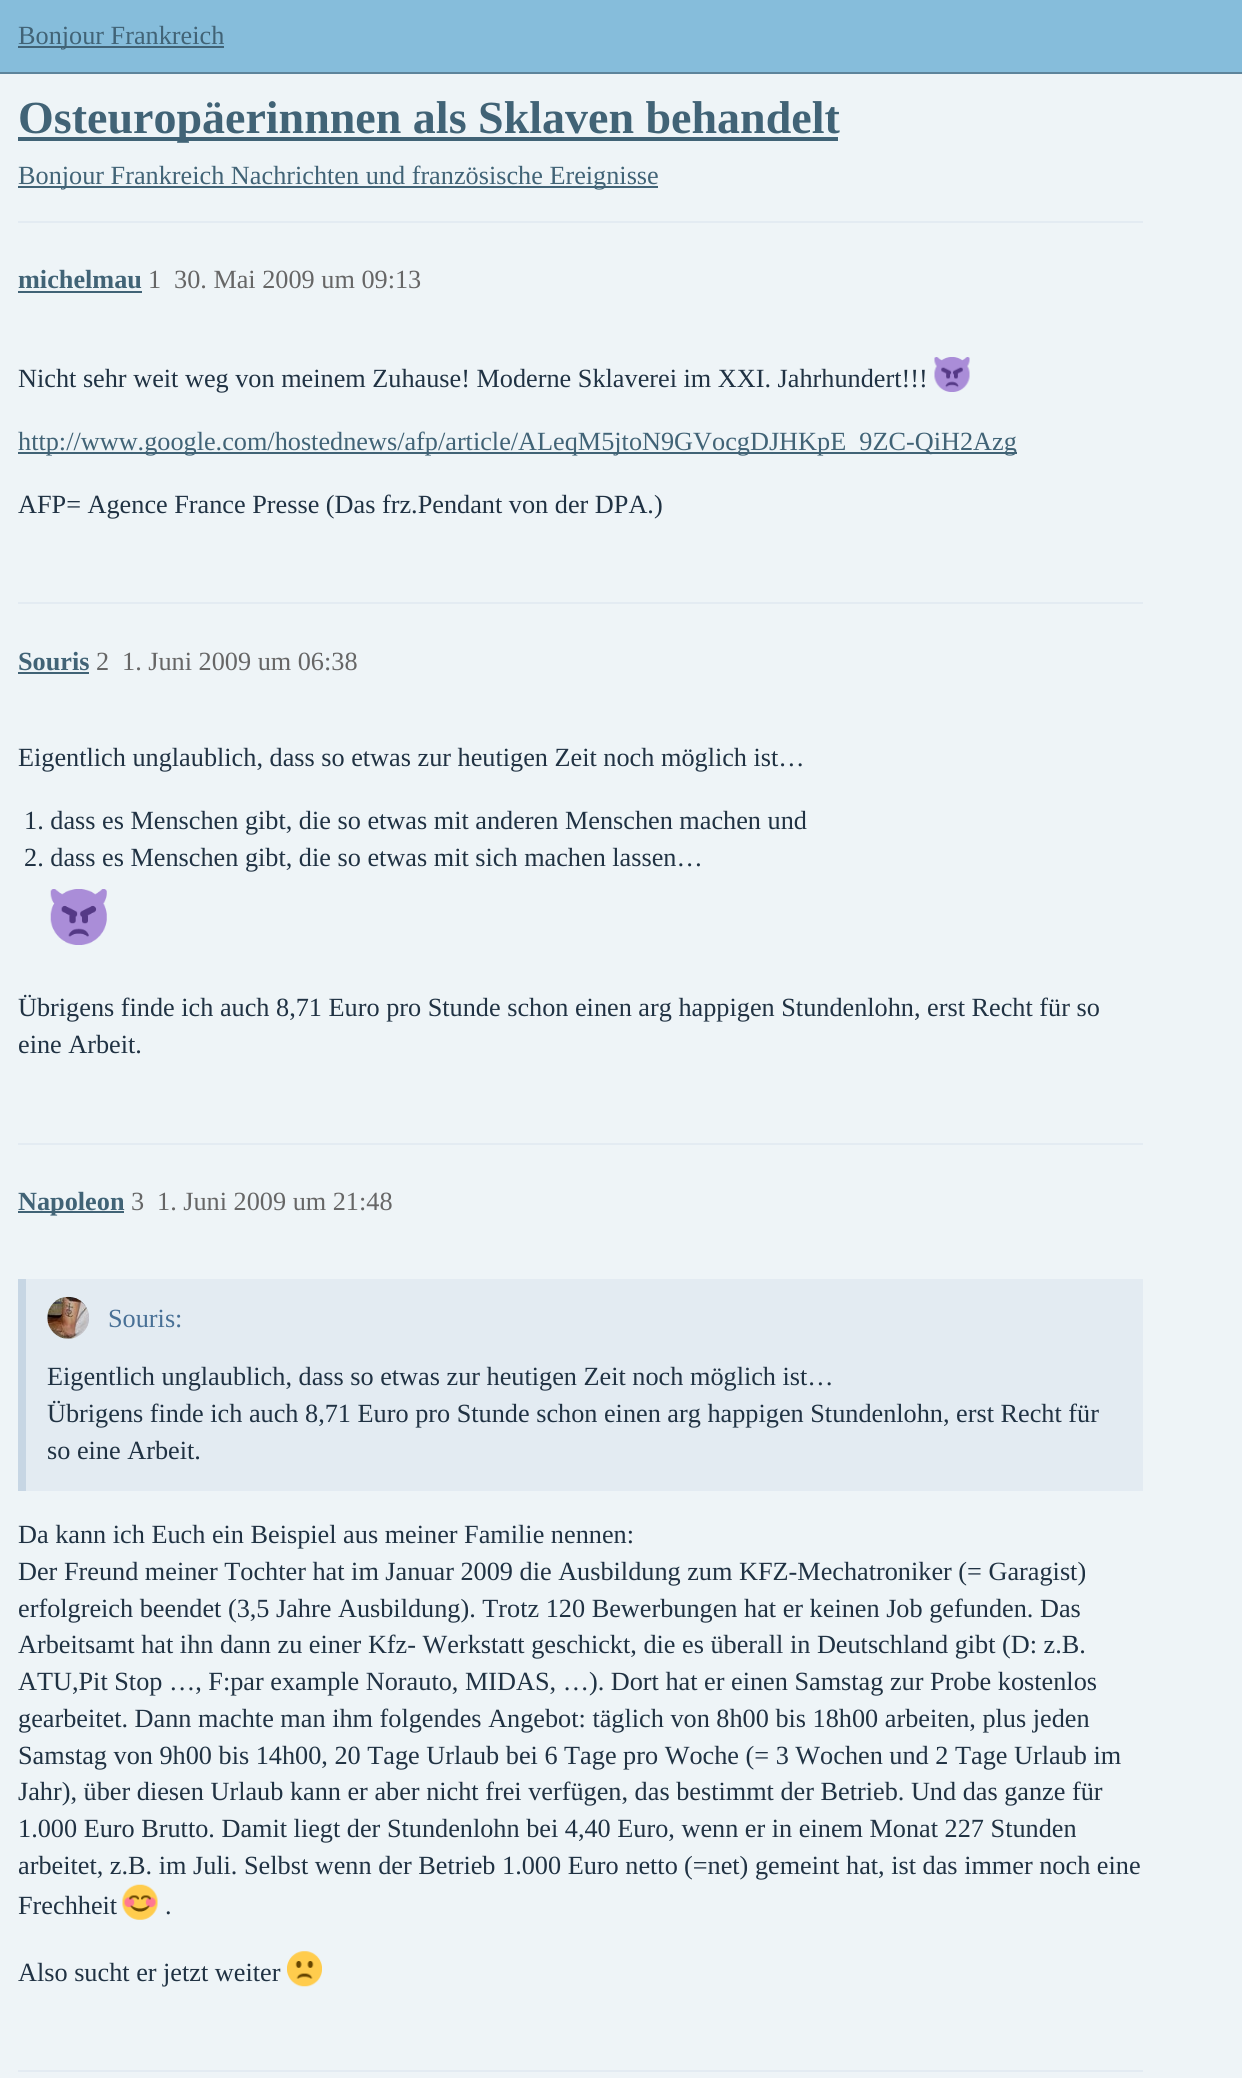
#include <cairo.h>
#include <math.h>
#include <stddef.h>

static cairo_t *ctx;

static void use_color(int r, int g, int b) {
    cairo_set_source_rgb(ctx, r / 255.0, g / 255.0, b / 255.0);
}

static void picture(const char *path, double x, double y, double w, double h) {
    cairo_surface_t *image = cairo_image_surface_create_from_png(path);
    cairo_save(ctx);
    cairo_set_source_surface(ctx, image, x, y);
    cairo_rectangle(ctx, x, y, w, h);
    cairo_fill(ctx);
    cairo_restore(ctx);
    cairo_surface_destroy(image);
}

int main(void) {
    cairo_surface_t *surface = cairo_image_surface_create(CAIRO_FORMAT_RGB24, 1242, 2078);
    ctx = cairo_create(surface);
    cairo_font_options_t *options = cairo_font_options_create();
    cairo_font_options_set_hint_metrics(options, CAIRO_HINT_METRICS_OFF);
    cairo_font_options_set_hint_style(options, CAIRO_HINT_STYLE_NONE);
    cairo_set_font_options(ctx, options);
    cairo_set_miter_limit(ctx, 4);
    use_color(238, 244, 247);
    cairo_paint(ctx);
    use_color(134, 189, 219);
    cairo_rectangle(ctx, 0, 0, 1242, 72);
    cairo_fill(ctx);
    use_color(93, 132, 155);
    cairo_rectangle(ctx, 0, 72, 1242, 2);
    cairo_fill(ctx);
    use_color(65, 99, 118);
    cairo_rectangle(ctx, 18, 46, 206, 2);
    cairo_fill(ctx);
    cairo_select_font_face(ctx, "Liberation Serif", CAIRO_FONT_SLANT_NORMAL, CAIRO_FONT_WEIGHT_NORMAL);
    cairo_set_font_size(ctx, 26.25);
    cairo_move_to(ctx, 18, 44);
    cairo_show_text(ctx, "Bonjour Frankreich");
    cairo_rectangle(ctx, 18, 137, 820, 4);
    cairo_fill(ctx);
    cairo_select_font_face(ctx, "Liberation Serif", CAIRO_FONT_SLANT_NORMAL, CAIRO_FONT_WEIGHT_BOLD);
    cairo_set_font_size(ctx, 46);
    cairo_move_to(ctx, 18, 133);
    cairo_show_text(ctx, "Osteuropäerinnnen als Sklaven behandelt");
    cairo_rectangle(ctx, 18, 186, 640, 2);
    cairo_fill(ctx);
    cairo_select_font_face(ctx, "Liberation Serif", CAIRO_FONT_SLANT_NORMAL, CAIRO_FONT_WEIGHT_NORMAL);
    cairo_set_font_size(ctx, 26.25);
    cairo_move_to(ctx, 18, 184);
    cairo_show_text(ctx, "Bonjour Frankreich Nachrichten und französische Ereignisse");
    use_color(227, 235, 242);
    cairo_rectangle(ctx, 18, 221, 1125, 2);
    cairo_fill(ctx);
    cairo_select_font_face(ctx, "Liberation Serif", CAIRO_FONT_SLANT_NORMAL, CAIRO_FONT_WEIGHT_BOLD);
    use_color(65, 99, 118);
    cairo_move_to(ctx, 18, 288);
    cairo_show_text(ctx, "michelmau");
    cairo_rectangle(ctx, 18, 291, 124, 2);
    cairo_fill(ctx);
    cairo_select_font_face(ctx, "Liberation Serif", CAIRO_FONT_SLANT_NORMAL, CAIRO_FONT_WEIGHT_NORMAL);
    use_color(102, 102, 102);
    cairo_move_to(ctx, 148, 288);
    cairo_show_text(ctx, "1");
    cairo_move_to(ctx, 174, 288);
    cairo_show_text(ctx, "30. Mai 2009 um 09:13");
    use_color(32, 50, 67);
    cairo_move_to(ctx, 18, 387);
    cairo_show_text(ctx, "Nicht sehr weit weg von meinem Zuhause! Moderne Sklaverei im XXI. Jahrhundert!!!");
    picture("img1.png", 934, 357, 36, 35);
    use_color(65, 99, 118);
    cairo_rectangle(ctx, 18, 452, 999, 2);
    cairo_fill(ctx);
    cairo_move_to(ctx, 18, 450);
    cairo_show_text(ctx, "http://www.google.com/hostednews/afp/article/ALeqM5jtoN9GVocgDJHKpE_9ZC-QiH2Azg");
    use_color(32, 50, 67);
    cairo_move_to(ctx, 18, 513);
    cairo_show_text(ctx, "AFP= Agence France Presse (Das frz.Pendant von der DPA.)");
    use_color(227, 235, 242);
    cairo_rectangle(ctx, 18, 602, 1125, 2);
    cairo_fill(ctx);
    cairo_select_font_face(ctx, "Liberation Serif", CAIRO_FONT_SLANT_NORMAL, CAIRO_FONT_WEIGHT_BOLD);
    use_color(65, 99, 118);
    cairo_move_to(ctx, 18, 670);
    cairo_show_text(ctx, "Souris");
    cairo_rectangle(ctx, 18, 672, 71, 2);
    cairo_fill(ctx);
    cairo_select_font_face(ctx, "Liberation Serif", CAIRO_FONT_SLANT_NORMAL, CAIRO_FONT_WEIGHT_NORMAL);
    use_color(102, 102, 102);
    cairo_move_to(ctx, 96, 670);
    cairo_show_text(ctx, "2");
    cairo_move_to(ctx, 122, 670);
    cairo_show_text(ctx, "1. Juni 2009 um 06:38");
    use_color(32, 50, 67);
    cairo_move_to(ctx, 18, 766);
    cairo_show_text(ctx, "Eigentlich unglaublich, dass so etwas zur heutigen Zeit noch möglich ist…");
    cairo_move_to(ctx, 24, 829);
    cairo_show_text(ctx, "1. dass es Menschen gibt, die so etwas mit anderen Menschen machen und");
    cairo_move_to(ctx, 24, 866);
    cairo_show_text(ctx, "2. dass es Menschen gibt, die so etwas mit sich machen lassen…");
    picture("img2.png", 50, 889, 57, 56);
    cairo_move_to(ctx, 18, 1016);
    cairo_show_text(ctx, "Übrigens finde ich auch 8,71 Euro pro Stunde schon einen arg happigen Stundenlohn, erst Recht für so");
    cairo_move_to(ctx, 18, 1053);
    cairo_show_text(ctx, "eine Arbeit.");
    use_color(227, 235, 242);
    cairo_rectangle(ctx, 18, 1143, 1125, 2);
    cairo_fill(ctx);
    use_color(65, 99, 118);
    cairo_rectangle(ctx, 18, 1211, 106, 2);
    cairo_fill(ctx);
    cairo_select_font_face(ctx, "Liberation Serif", CAIRO_FONT_SLANT_NORMAL, CAIRO_FONT_WEIGHT_BOLD);
    cairo_move_to(ctx, 18, 1210);
    cairo_show_text(ctx, "Napoleon");
    cairo_select_font_face(ctx, "Liberation Serif", CAIRO_FONT_SLANT_NORMAL, CAIRO_FONT_WEIGHT_NORMAL);
    use_color(102, 102, 102);
    cairo_move_to(ctx, 131, 1210);
    cairo_show_text(ctx, "3");
    cairo_move_to(ctx, 157, 1210);
    cairo_show_text(ctx, "1. Juni 2009 um 21:48");
    use_color(227, 235, 242);
    cairo_rectangle(ctx, 26, 1279, 1117, 212);
    cairo_fill(ctx);
    use_color(199, 214, 228);
    cairo_rectangle(ctx, 18, 1279, 8, 212);
    cairo_fill(ctx);
    picture("img3.png", 47, 1296, 42, 43);
    use_color(72, 112, 150);
    cairo_move_to(ctx, 108, 1327);
    cairo_show_text(ctx, "Souris:");
    use_color(32, 50, 67);
    cairo_move_to(ctx, 47, 1385);
    cairo_show_text(ctx, "Eigentlich unglaublich, dass so etwas zur heutigen Zeit noch möglich ist…");
    cairo_move_to(ctx, 47, 1422);
    cairo_show_text(ctx, "Übrigens finde ich auch 8,71 Euro pro Stunde schon einen arg happigen Stundenlohn, erst Recht für");
    cairo_move_to(ctx, 47, 1459);
    cairo_show_text(ctx, "so eine Arbeit.");
    cairo_move_to(ctx, 18, 1543);
    cairo_show_text(ctx, "Da kann ich Euch ein Beispiel aus meiner Familie nennen:");
    cairo_move_to(ctx, 18, 1580);
    cairo_show_text(ctx, "Der Freund meiner Tochter hat im Januar 2009 die Ausbildung zum KFZ-Mechatroniker (= Garagist)");
    cairo_move_to(ctx, 18, 1617);
    cairo_show_text(ctx, "erfolgreich beendet (3,5 Jahre Ausbildung). Trotz 120 Bewerbungen hat er keinen Job gefunden. Das");
    cairo_move_to(ctx, 18, 1653);
    cairo_show_text(ctx, "Arbeitsamt hat ihn dann zu einer Kfz- Werkstatt geschickt, die es überall in Deutschland gibt (D: z.B.");
    cairo_move_to(ctx, 18, 1690);
    cairo_show_text(ctx, "ATU,Pit Stop …, F:par example Norauto, MIDAS, …). Dort hat er einen Samstag zur Probe kostenlos");
    cairo_move_to(ctx, 18, 1727);
    cairo_show_text(ctx, "gearbeitet. Dann machte man ihm folgendes Angebot: täglich von 8h00 bis 18h00 arbeiten, plus jeden");
    cairo_move_to(ctx, 18, 1764);
    cairo_show_text(ctx, "Samstag von 9h00 bis 14h00, 20 Tage Urlaub bei 6 Tage pro Woche (= 3 Wochen und 2 Tage Urlaub im");
    cairo_move_to(ctx, 18, 1800);
    cairo_show_text(ctx, "Jahr), über diesen Urlaub kann er aber nicht frei verfügen, das bestimmt der Betrieb. Und das ganze für");
    cairo_move_to(ctx, 18, 1837);
    cairo_show_text(ctx, "1.000 Euro Brutto. Damit liegt der Stundenlohn bei 4,40 Euro, wenn er in einem Monat 227 Stunden");
    cairo_move_to(ctx, 18, 1874);
    cairo_show_text(ctx, "arbeitet, z.B. im Juli. Selbst wenn der Betrieb 1.000 Euro netto");
    cairo_move_to(ctx, 684, 1874);
    cairo_show_text(ctx, "(=net) gemeint hat, ist das immer noch eine");
    cairo_move_to(ctx, 18, 1914);
    cairo_show_text(ctx, "Frechheit");
    picture("img4.png", 122, 1884, 36, 36);
    cairo_move_to(ctx, 165, 1914);
    cairo_show_text(ctx, ".");
    cairo_move_to(ctx, 18, 1981);
    cairo_show_text(ctx, "Also sucht er jetzt weiter");
    picture("img5.png", 287, 1951, 35, 36);
    use_color(227, 235, 242);
    cairo_rectangle(ctx, 18, 2070, 1125, 2);
    cairo_fill(ctx);
    cairo_surface_write_to_png(surface, "result.png");
    cairo_font_options_destroy(options);
    cairo_destroy(ctx);
    cairo_surface_destroy(surface);
    return 0;
}
